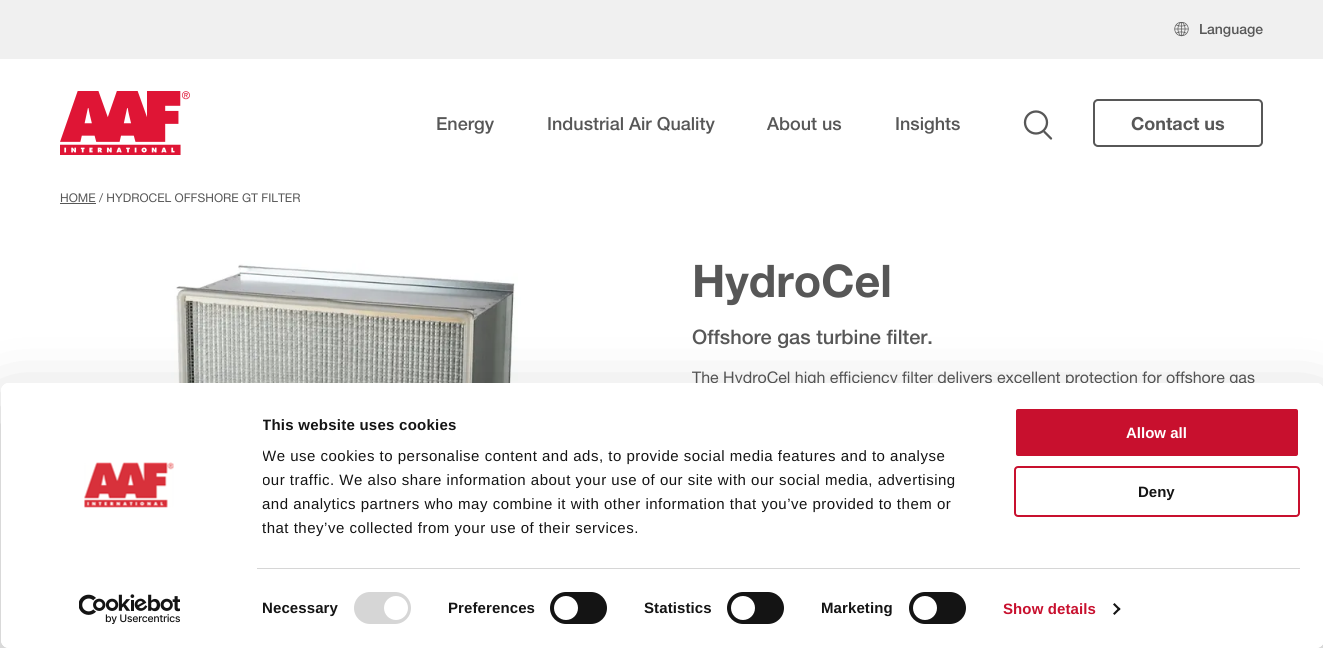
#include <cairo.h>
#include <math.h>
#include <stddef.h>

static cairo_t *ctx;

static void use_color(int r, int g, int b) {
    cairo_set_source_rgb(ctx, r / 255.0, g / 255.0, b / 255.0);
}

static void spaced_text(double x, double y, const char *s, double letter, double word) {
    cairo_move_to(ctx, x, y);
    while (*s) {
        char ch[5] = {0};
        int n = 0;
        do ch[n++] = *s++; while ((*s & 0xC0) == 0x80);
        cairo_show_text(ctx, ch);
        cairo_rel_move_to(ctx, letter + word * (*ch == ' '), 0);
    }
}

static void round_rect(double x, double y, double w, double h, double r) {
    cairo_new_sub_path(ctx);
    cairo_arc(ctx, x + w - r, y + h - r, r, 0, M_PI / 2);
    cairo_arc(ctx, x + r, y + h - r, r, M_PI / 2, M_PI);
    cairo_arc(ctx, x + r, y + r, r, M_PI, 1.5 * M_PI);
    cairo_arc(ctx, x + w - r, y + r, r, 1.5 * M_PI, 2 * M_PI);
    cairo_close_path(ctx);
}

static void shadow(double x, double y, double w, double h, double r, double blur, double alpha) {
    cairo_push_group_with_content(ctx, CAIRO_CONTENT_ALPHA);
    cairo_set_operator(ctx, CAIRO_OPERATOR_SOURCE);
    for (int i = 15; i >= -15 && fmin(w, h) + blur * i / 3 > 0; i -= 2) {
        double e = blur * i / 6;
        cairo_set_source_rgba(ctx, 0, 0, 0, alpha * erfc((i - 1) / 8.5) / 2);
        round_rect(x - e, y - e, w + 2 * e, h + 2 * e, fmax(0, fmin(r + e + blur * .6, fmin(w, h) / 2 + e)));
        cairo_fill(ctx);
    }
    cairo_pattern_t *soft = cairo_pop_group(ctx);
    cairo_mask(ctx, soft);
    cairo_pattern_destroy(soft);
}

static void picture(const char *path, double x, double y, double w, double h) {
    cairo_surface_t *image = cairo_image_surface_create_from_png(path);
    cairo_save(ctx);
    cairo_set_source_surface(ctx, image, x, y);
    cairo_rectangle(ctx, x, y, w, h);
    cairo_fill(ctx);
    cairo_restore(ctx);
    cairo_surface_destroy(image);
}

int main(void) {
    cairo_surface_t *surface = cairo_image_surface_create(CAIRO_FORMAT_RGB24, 1323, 648);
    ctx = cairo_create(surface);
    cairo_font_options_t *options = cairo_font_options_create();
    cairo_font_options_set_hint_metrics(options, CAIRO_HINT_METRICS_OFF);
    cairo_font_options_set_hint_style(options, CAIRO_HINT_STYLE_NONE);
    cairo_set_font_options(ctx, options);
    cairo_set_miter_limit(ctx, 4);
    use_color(255, 255, 255);
    cairo_paint(ctx);
    use_color(240, 240, 240);
    cairo_rectangle(ctx, 0, 0, 1323, 59);
    cairo_fill(ctx);
    picture("img1.png", 1174, 22, 15, 15);
    cairo_select_font_face(ctx, "Helvetica Neue Medium", CAIRO_FONT_SLANT_NORMAL, CAIRO_FONT_WEIGHT_NORMAL);
    cairo_set_font_size(ctx, 14);
    use_color(87, 87, 87);
    cairo_move_to(ctx, 1199, 34);
    cairo_show_text(ctx, "Language");
    picture("img2.png", 60, 91, 130, 64);
    cairo_set_font_size(ctx, 18);
    cairo_move_to(ctx, 436, 130);
    cairo_show_text(ctx, "Energy");
    cairo_move_to(ctx, 547, 130);
    cairo_show_text(ctx, "Industrial Air Quality");
    cairo_move_to(ctx, 767, 130);
    cairo_show_text(ctx, "About us");
    cairo_move_to(ctx, 895, 130);
    cairo_show_text(ctx, "Insights");
    cairo_new_path(ctx);
    cairo_arc(ctx, 1036, 122.5, 11, 0, 2 * M_PI);
    cairo_set_line_width(ctx, 2.3);
    cairo_stroke(ctx);
    cairo_new_path(ctx);
    cairo_move_to(ctx, 1044.5, 132);
    cairo_line_to(ctx, 1051, 138.5);
    cairo_set_line_cap(ctx, CAIRO_LINE_CAP_ROUND);
    cairo_set_line_join(ctx, CAIRO_LINE_JOIN_ROUND);
    cairo_stroke(ctx);
    round_rect(1094, 100, 168, 46, 4);
    cairo_set_line_width(ctx, 2);
    cairo_set_line_cap(ctx, CAIRO_LINE_CAP_BUTT);
    cairo_set_line_join(ctx, CAIRO_LINE_JOIN_MITER);
    cairo_stroke(ctx);
    cairo_select_font_face(ctx, "Helvetica Neue", CAIRO_FONT_SLANT_NORMAL, CAIRO_FONT_WEIGHT_BOLD);
    cairo_move_to(ctx, 1131, 130);
    cairo_show_text(ctx, "Contact us");
    cairo_select_font_face(ctx, "Helvetica Neue", CAIRO_FONT_SLANT_NORMAL, CAIRO_FONT_WEIGHT_NORMAL);
    cairo_set_font_size(ctx, 12);
    cairo_move_to(ctx, 60, 202);
    cairo_show_text(ctx, "HOME");
    cairo_rectangle(ctx, 60, 203, 36, 1);
    cairo_fill(ctx);
    cairo_move_to(ctx, 99, 202);
    cairo_show_text(ctx, "/ HYDROCEL OFFSHORE GT FILTER");
    picture("img3.png", 60, 258, 572, 125);
    cairo_select_font_face(ctx, "Helvetica Neue", CAIRO_FONT_SLANT_NORMAL, CAIRO_FONT_WEIGHT_BOLD);
    cairo_set_font_size(ctx, 45);
    cairo_move_to(ctx, 692, 297);
    cairo_show_text(ctx, "HydroCel");
    cairo_select_font_face(ctx, "Helvetica Neue Medium", CAIRO_FONT_SLANT_NORMAL, CAIRO_FONT_WEIGHT_NORMAL);
    cairo_set_font_size(ctx, 20);
    cairo_move_to(ctx, 692, 344);
    cairo_show_text(ctx, "Offshore gas turbine filter.");
    cairo_select_font_face(ctx, "Helvetica Neue", CAIRO_FONT_SLANT_NORMAL, CAIRO_FONT_WEIGHT_NORMAL);
    cairo_set_font_size(ctx, 16);
    cairo_move_to(ctx, 692, 383);
    cairo_show_text(ctx, "The HydroCel high efficiency filter delivers excellent protection for offshore gas");
    cairo_save(ctx);
    cairo_set_fill_rule(ctx, CAIRO_FILL_RULE_EVEN_ODD);
    cairo_new_path(ctx);
    cairo_move_to(ctx, 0, 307);
    cairo_line_to(ctx, 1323, 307);
    cairo_line_to(ctx, 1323, 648);
    cairo_line_to(ctx, 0, 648);
    cairo_close_path(ctx);
    cairo_move_to(ctx, 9, 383);
    cairo_line_to(ctx, 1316, 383);
    cairo_curve_to(ctx, 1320.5, 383, 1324, 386.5, 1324, 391);
    cairo_line_to(ctx, 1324, 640);
    cairo_curve_to(ctx, 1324, 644.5, 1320.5, 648, 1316, 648);
    cairo_line_to(ctx, 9, 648);
    cairo_curve_to(ctx, 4.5, 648, 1, 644.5, 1, 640);
    cairo_line_to(ctx, 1, 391);
    cairo_curve_to(ctx, 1, 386.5, 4.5, 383, 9, 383);
    cairo_close_path(ctx);
    cairo_clip(ctx);
    use_color(0, 0, 0);
    shadow(1, 413, 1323, 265, 8, 35, 0.3);
    cairo_restore(ctx);
    use_color(255, 255, 255);
    round_rect(1, 383, 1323, 265, 8);
    cairo_fill(ctx);
    picture("img4.png", 84, 462, 90, 46);
    picture("img5.png", 79, 594, 101, 30);
    cairo_save(ctx);
    cairo_rectangle(ctx, 263, 413, 722, 127);
    cairo_clip(ctx);
    cairo_select_font_face(ctx, "Liberation Sans", CAIRO_FONT_SLANT_NORMAL, CAIRO_FONT_WEIGHT_BOLD);
    cairo_set_font_size(ctx, 15);
    use_color(20, 20, 20);
    spaced_text(262, 430, "This website uses cookies", 0.25, 0);
    cairo_select_font_face(ctx, "Liberation Sans", CAIRO_FONT_SLANT_NORMAL, CAIRO_FONT_WEIGHT_NORMAL);
    spaced_text(262, 461, "We use cookies to personalise content and ads, to provide social media features and to analyse", 0.5, 0);
    spaced_text(262, 485, "our traffic. We also share information about your use of our site with our social media, advertising", 0.5, 0);
    cairo_restore(ctx);
    cairo_select_font_face(ctx, "Liberation Sans", CAIRO_FONT_SLANT_NORMAL, CAIRO_FONT_WEIGHT_NORMAL);
    cairo_set_font_size(ctx, 15);
    use_color(20, 20, 20);
    spaced_text(262, 509, "and analytics partners who may combine it with other information that you’ve provided to them or", 0.5, 0);
    spaced_text(262, 533, "that they’ve collected from your use of their services.", 0.5, 0);
    use_color(214, 214, 214);
    cairo_rectangle(ctx, 257, 568, 1043, 1);
    cairo_fill(ctx);
    cairo_select_font_face(ctx, "Liberation Sans", CAIRO_FONT_SLANT_NORMAL, CAIRO_FONT_WEIGHT_BOLD);
    use_color(20, 20, 20);
    spaced_text(262, 613, "Necessary", 0.1, 0);
    use_color(214, 214, 214);
    round_rect(354, 592, 57, 32, 16);
    cairo_fill(ctx);
    use_color(255, 255, 255);
    cairo_arc(ctx, 396, 608, 12, 0, 2 * M_PI);
    cairo_fill(ctx);
    use_color(20, 20, 20);
    spaced_text(448, 613, "Preferences", 0.1, 0);
    round_rect(550, 592, 57, 32, 16);
    cairo_fill(ctx);
    use_color(255, 255, 255);
    cairo_arc(ctx, 566, 608, 12, 0, 2 * M_PI);
    cairo_fill(ctx);
    use_color(20, 20, 20);
    spaced_text(644, 613, "Statistics", 0.1, 0);
    round_rect(727, 592, 57, 32, 16);
    cairo_fill(ctx);
    use_color(255, 255, 255);
    cairo_arc(ctx, 743, 608, 12, 0, 2 * M_PI);
    cairo_fill(ctx);
    use_color(20, 20, 20);
    spaced_text(821, 613, "Marketing", 0.1, 0);
    round_rect(909, 592, 57, 32, 16);
    cairo_fill(ctx);
    use_color(255, 255, 255);
    cairo_arc(ctx, 925, 608, 12, 0, 2 * M_PI);
    cairo_fill(ctx);
    use_color(200, 16, 46);
    spaced_text(1003, 614, "Show details", 0.1, 0);
    use_color(20, 20, 20);
    cairo_new_path(ctx);
    cairo_move_to(ctx, 1114.5, 603);
    cairo_line_to(ctx, 1120.5, 609);
    cairo_line_to(ctx, 1119, 610.5);
    cairo_line_to(ctx, 1113, 604.5);
    cairo_close_path(ctx);
    cairo_fill(ctx);
    cairo_new_path(ctx);
    cairo_move_to(ctx, 1119, 607.5);
    cairo_line_to(ctx, 1120.5, 609);
    cairo_line_to(ctx, 1114.5, 615);
    cairo_line_to(ctx, 1113, 613.5);
    cairo_close_path(ctx);
    cairo_fill(ctx);
    use_color(200, 16, 46);
    round_rect(1015, 408, 284, 49, 3);
    cairo_fill_preserve(ctx);
    use_color(255, 255, 255);
    cairo_stroke(ctx);
    cairo_move_to(ctx, 1126, 438);
    cairo_show_text(ctx, "Allow all");
    round_rect(1015, 467, 284, 49, 3);
    use_color(200, 16, 46);
    cairo_stroke(ctx);
    use_color(20, 20, 20);
    cairo_move_to(ctx, 1138, 497);
    cairo_show_text(ctx, "Deny");
    cairo_surface_write_to_png(surface, "result.png");
    cairo_font_options_destroy(options);
    cairo_destroy(ctx);
    cairo_surface_destroy(surface);
    return 0;
}
